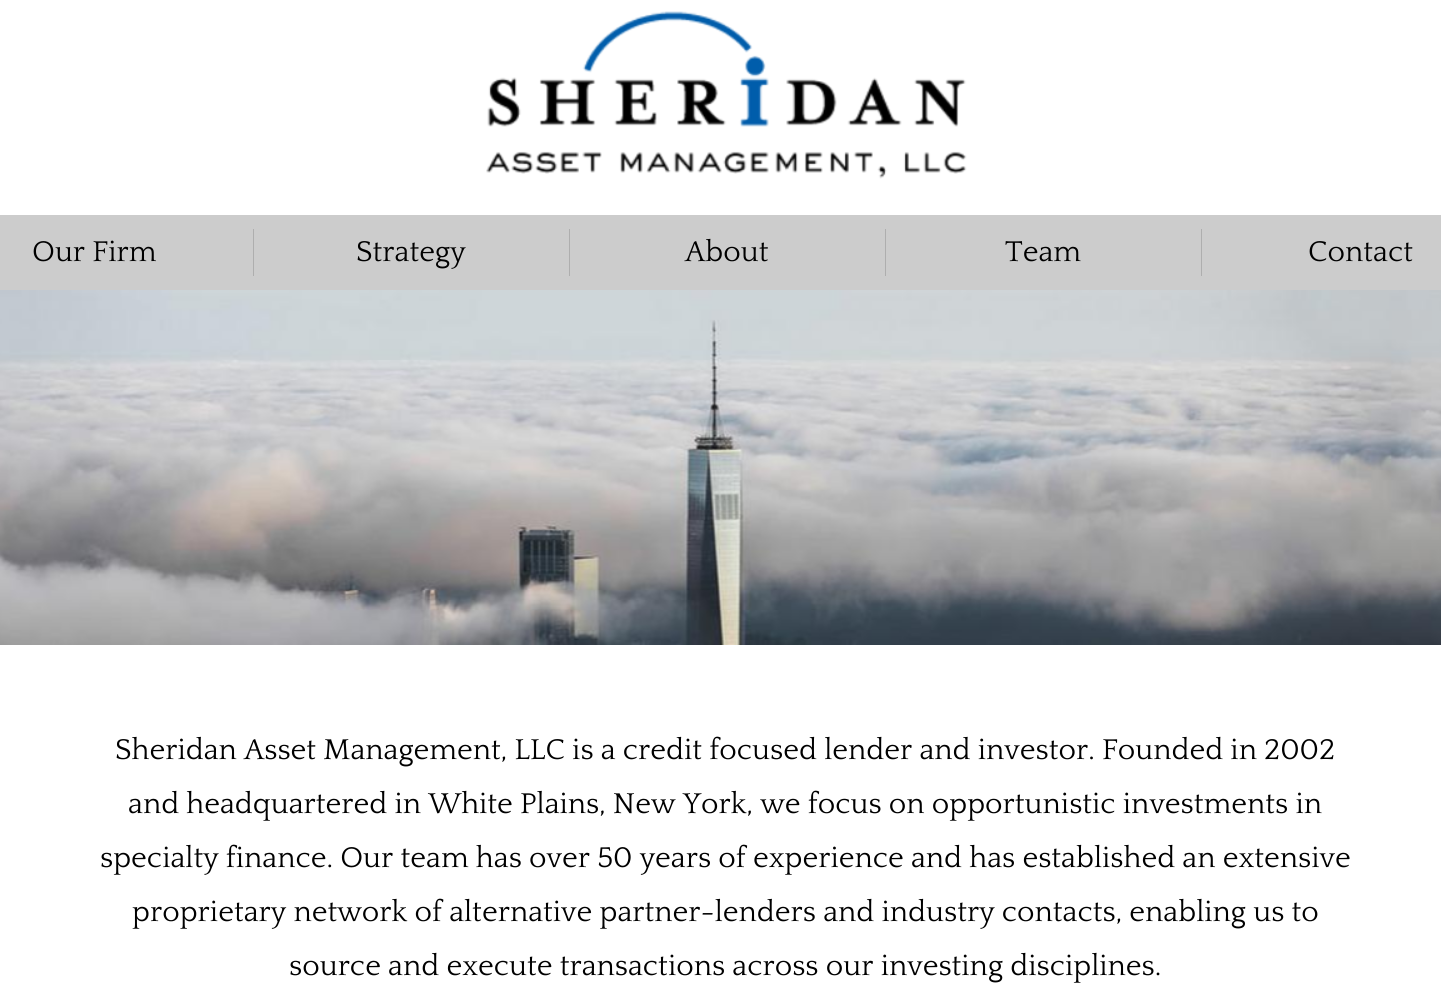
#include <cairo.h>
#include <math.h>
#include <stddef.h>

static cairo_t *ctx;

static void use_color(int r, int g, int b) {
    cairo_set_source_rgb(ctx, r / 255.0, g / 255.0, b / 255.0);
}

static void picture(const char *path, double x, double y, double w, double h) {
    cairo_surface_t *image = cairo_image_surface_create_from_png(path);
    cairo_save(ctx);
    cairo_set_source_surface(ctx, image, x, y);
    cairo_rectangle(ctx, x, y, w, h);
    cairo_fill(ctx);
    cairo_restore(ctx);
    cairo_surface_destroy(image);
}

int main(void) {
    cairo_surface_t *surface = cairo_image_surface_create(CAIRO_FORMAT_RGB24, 1441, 998);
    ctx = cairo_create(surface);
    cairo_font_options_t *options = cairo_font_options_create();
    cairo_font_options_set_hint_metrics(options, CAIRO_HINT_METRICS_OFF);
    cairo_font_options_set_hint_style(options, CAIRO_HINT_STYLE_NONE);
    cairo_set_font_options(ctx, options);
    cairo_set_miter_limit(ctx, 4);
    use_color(255, 255, 255);
    cairo_paint(ctx);
    picture("img1.png", 486, 11, 481, 168);
    use_color(204, 204, 204);
    cairo_rectangle(ctx, 0, 215, 1441, 75);
    cairo_fill(ctx);
    use_color(174, 174, 174);
    cairo_rectangle(ctx, 253, 229, 1, 47);
    cairo_fill(ctx);
    cairo_select_font_face(ctx, "Quattrocento", CAIRO_FONT_SLANT_NORMAL, CAIRO_FONT_WEIGHT_NORMAL);
    cairo_set_font_size(ctx, 30);
    use_color(0, 0, 0);
    cairo_move_to(ctx, 32, 261);
    cairo_show_text(ctx, "Our Firm");
    use_color(174, 174, 174);
    cairo_rectangle(ctx, 569, 229, 1, 47);
    cairo_fill(ctx);
    use_color(0, 0, 0);
    cairo_move_to(ctx, 356, 261);
    cairo_show_text(ctx, "Strategy");
    use_color(174, 174, 174);
    cairo_rectangle(ctx, 885, 229, 1, 47);
    cairo_fill(ctx);
    use_color(0, 0, 0);
    cairo_move_to(ctx, 685, 261);
    cairo_show_text(ctx, "About");
    use_color(174, 174, 174);
    cairo_rectangle(ctx, 1201, 229, 1, 47);
    cairo_fill(ctx);
    use_color(0, 0, 0);
    cairo_move_to(ctx, 1005, 261);
    cairo_show_text(ctx, "Team");
    cairo_move_to(ctx, 1308, 261);
    cairo_show_text(ctx, "Contact");
    picture("img2.png", 0, 290, 1441, 355);
    cairo_move_to(ctx, 115, 759);
    cairo_show_text(ctx, "Sheridan Asset Management, LLC is a credit focused lender and investor. Founded in 2002");
    cairo_move_to(ctx, 128, 813);
    cairo_show_text(ctx, "and headquartered in White Plains, New York, we focus on opportunistic investments in");
    cairo_move_to(ctx, 100, 867);
    cairo_show_text(ctx, "specialty finance. Our team has over 50 years of experience and has established an extensive");
    cairo_move_to(ctx, 132, 921);
    cairo_show_text(ctx, "proprietary network of alternative partner-lenders and industry contacts, enabling us to");
    cairo_move_to(ctx, 289, 975);
    cairo_show_text(ctx, "source and execute transactions across our investing disciplines.");
    cairo_surface_write_to_png(surface, "result.png");
    cairo_font_options_destroy(options);
    cairo_destroy(ctx);
    cairo_surface_destroy(surface);
    return 0;
}
